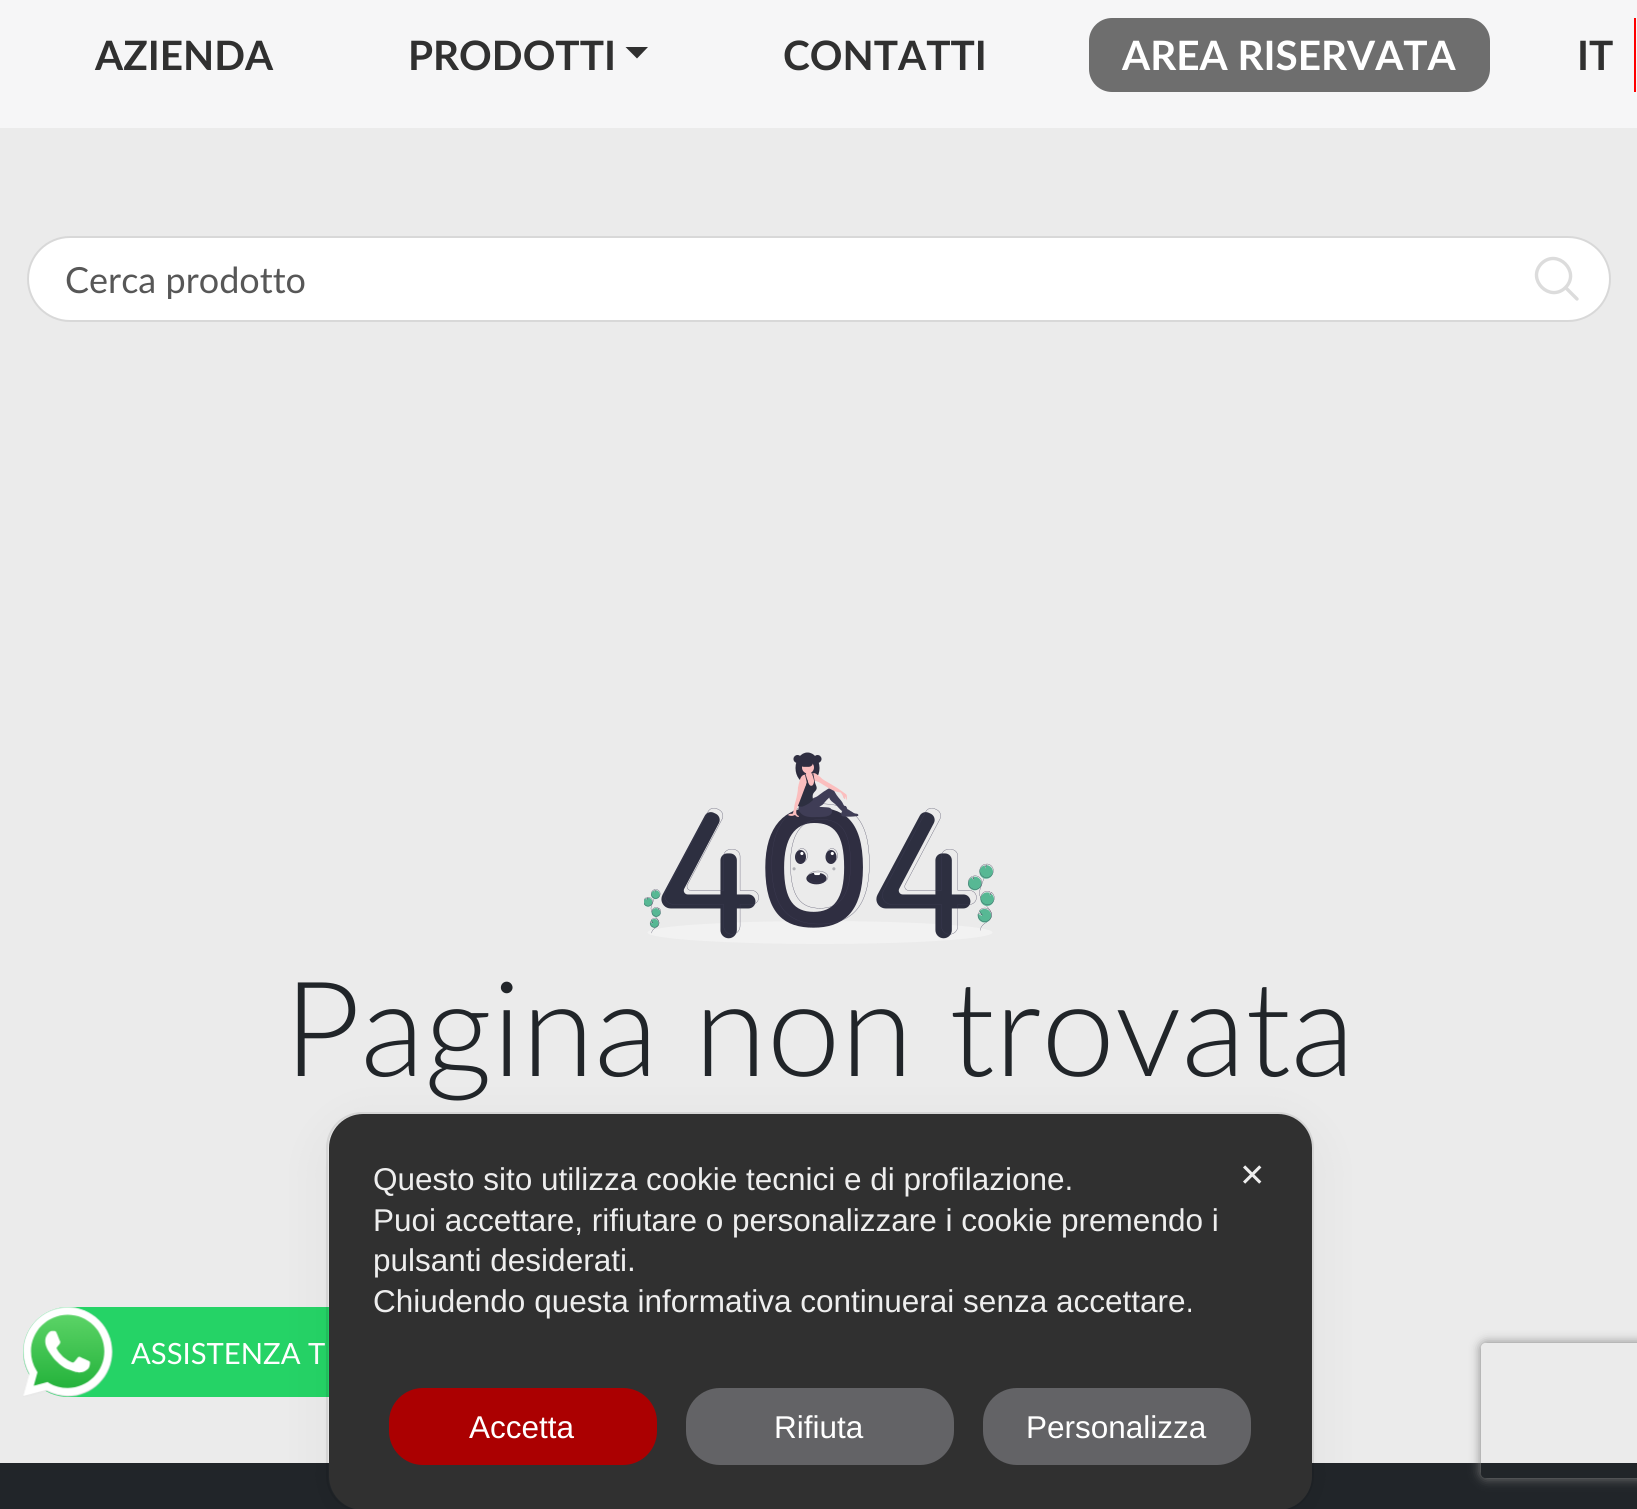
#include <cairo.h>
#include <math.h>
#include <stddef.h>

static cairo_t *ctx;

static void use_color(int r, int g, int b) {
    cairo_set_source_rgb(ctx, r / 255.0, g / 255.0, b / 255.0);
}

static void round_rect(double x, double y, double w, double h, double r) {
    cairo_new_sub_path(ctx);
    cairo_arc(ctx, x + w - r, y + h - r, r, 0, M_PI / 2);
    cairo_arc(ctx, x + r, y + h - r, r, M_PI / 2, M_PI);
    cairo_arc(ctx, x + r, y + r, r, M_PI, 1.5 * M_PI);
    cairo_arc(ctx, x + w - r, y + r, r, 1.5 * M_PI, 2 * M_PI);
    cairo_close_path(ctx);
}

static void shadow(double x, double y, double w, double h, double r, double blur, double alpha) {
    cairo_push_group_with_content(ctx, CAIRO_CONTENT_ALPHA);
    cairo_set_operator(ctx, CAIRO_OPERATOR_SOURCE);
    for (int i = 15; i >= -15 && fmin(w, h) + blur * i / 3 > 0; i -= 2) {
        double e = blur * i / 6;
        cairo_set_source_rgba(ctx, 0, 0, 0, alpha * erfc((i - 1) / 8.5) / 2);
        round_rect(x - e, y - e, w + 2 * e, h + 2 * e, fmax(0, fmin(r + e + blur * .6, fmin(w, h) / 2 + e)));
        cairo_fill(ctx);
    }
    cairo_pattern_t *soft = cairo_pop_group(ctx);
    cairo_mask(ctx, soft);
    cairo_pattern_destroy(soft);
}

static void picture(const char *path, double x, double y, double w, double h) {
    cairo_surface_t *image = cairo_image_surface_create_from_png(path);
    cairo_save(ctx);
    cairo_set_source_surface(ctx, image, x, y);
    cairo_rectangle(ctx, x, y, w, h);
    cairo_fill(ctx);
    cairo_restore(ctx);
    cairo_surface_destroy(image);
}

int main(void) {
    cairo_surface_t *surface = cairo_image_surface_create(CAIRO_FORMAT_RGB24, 1637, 1509);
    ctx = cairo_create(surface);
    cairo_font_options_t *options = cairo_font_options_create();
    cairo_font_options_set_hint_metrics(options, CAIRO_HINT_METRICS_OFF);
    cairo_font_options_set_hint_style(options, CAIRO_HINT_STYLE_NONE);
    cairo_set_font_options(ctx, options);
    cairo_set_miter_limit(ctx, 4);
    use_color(235, 235, 235);
    cairo_paint(ctx);
    use_color(246, 246, 247);
    cairo_rectangle(ctx, 0, 0, 1637, 128);
    cairo_fill(ctx);
    cairo_select_font_face(ctx, "Lato", CAIRO_FONT_SLANT_NORMAL, CAIRO_FONT_WEIGHT_BOLD);
    cairo_set_font_size(ctx, 40.5);
    use_color(48, 48, 48);
    cairo_move_to(ctx, 95, 70);
    cairo_show_text(ctx, "AZIENDA");
    cairo_move_to(ctx, 408, 70);
    cairo_show_text(ctx, "PRODOTTI");
    cairo_new_path(ctx);
    cairo_move_to(ctx, 625.5, 47);
    cairo_line_to(ctx, 648, 47);
    cairo_line_to(ctx, 637, 58.5);
    cairo_close_path(ctx);
    cairo_fill(ctx);
    cairo_move_to(ctx, 783, 70);
    cairo_show_text(ctx, "CONTATTI");
    use_color(110, 110, 110);
    round_rect(1089, 18, 401, 74, 23);
    cairo_fill(ctx);
    use_color(255, 255, 255);
    cairo_move_to(ctx, 1122, 70);
    cairo_show_text(ctx, "AREA RISERVATA");
    use_color(48, 48, 48);
    cairo_move_to(ctx, 1577, 70);
    cairo_show_text(ctx, "IT");
    use_color(255, 0, 0);
    cairo_rectangle(ctx, 1634, 18, 2, 74);
    cairo_fill(ctx);
    use_color(255, 255, 255);
    round_rect(28, 237, 1582, 84, 42);
    cairo_fill_preserve(ctx);
    use_color(216, 216, 216);
    cairo_stroke(ctx);
    cairo_save(ctx);
    cairo_rectangle(ctx, 65, 257, 1429, 42);
    cairo_clip(ctx);
    cairo_select_font_face(ctx, "Lato", CAIRO_FONT_SLANT_NORMAL, CAIRO_FONT_WEIGHT_NORMAL);
    cairo_set_font_size(ctx, 36);
    use_color(87, 87, 87);
    cairo_move_to(ctx, 65, 293);
    cairo_show_text(ctx, "Cerca prodotto");
    cairo_restore(ctx);
    cairo_new_path(ctx);
    cairo_move_to(ctx, 1577, 299);
    cairo_line_to(ctx, 1565.5, 287.5);
    cairo_move_to(ctx, 1565.5, 287.5);
    cairo_curve_to(ctx, 1581, 272, 1557.5, 248, 1541.5, 263.5);
    cairo_curve_to(ctx, 1526, 279.5, 1550, 303, 1565.5, 287.5);
    cairo_close_path(ctx);
    use_color(220, 220, 220);
    cairo_set_line_width(ctx, 3.4);
    cairo_set_line_cap(ctx, CAIRO_LINE_CAP_ROUND);
    cairo_set_line_join(ctx, CAIRO_LINE_JOIN_ROUND);
    cairo_stroke(ctx);
    picture("img1.png", 644, 752, 351, 192);
    cairo_select_font_face(ctx, "Lato Light", CAIRO_FONT_SLANT_NORMAL, CAIRO_FONT_WEIGHT_NORMAL);
    cairo_set_font_size(ctx, 132.25);
    use_color(33, 37, 41);
    cairo_move_to(ctx, 284, 1076);
    cairo_show_text(ctx, "Pagina non trovata");
    use_color(37, 211, 102);
    round_rect(23, 1307, 587, 90, 45);
    cairo_fill(ctx);
    picture("img2.png", 23, 1307, 90, 90);
    cairo_select_font_face(ctx, "Lato", CAIRO_FONT_SLANT_NORMAL, CAIRO_FONT_WEIGHT_NORMAL);
    cairo_set_font_size(ctx, 29.25);
    use_color(255, 255, 255);
    cairo_move_to(ctx, 131, 1364);
    cairo_show_text(ctx, "ASSISTENZA T");
    use_color(33, 37, 41);
    cairo_rectangle(ctx, 0, 1463, 1637, 46);
    cairo_fill(ctx);
    round_rect(327, 1113, 986, 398, 35);
    cairo_set_source_rgba(ctx, 0, 0, 0, 0.08);
    cairo_set_line_width(ctx, 2);
    cairo_set_line_cap(ctx, CAIRO_LINE_CAP_BUTT);
    cairo_set_line_join(ctx, CAIRO_LINE_JOIN_MITER);
    cairo_stroke(ctx);
    use_color(0, 0, 0);
    shadow(329, 1127, 983, 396, 34, 27, 0.05);
    use_color(48, 48, 48);
    round_rect(329, 1114, 983, 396, 34);
    cairo_fill(ctx);
    cairo_select_font_face(ctx, "Liberation Sans", CAIRO_FONT_SLANT_NORMAL, CAIRO_FONT_WEIGHT_NORMAL);
    cairo_set_font_size(ctx, 31.5);
    use_color(238, 238, 238);
    cairo_move_to(ctx, 373, 1190);
    cairo_show_text(ctx, "Questo sito utilizza cookie tecnici e di profilazione.");
    cairo_move_to(ctx, 373, 1231);
    cairo_show_text(ctx, "Puoi accettare, rifiutare o personalizzare i cookie premendo i");
    cairo_move_to(ctx, 373, 1271);
    cairo_show_text(ctx, "pulsanti desiderati.");
    cairo_move_to(ctx, 373, 1312);
    cairo_show_text(ctx, "Chiudendo questa informativa continuerai senza accettare.");
    use_color(171, 0, 1);
    round_rect(389, 1388, 268, 77, 34);
    cairo_fill(ctx);
    use_color(255, 255, 255);
    cairo_move_to(ctx, 469, 1438);
    cairo_show_text(ctx, "Accetta");
    use_color(99, 99, 102);
    round_rect(686, 1388, 268, 77, 34);
    cairo_fill(ctx);
    use_color(255, 255, 255);
    cairo_move_to(ctx, 774, 1438);
    cairo_show_text(ctx, "Rifiuta");
    use_color(99, 99, 102);
    round_rect(983, 1388, 268, 77, 34);
    cairo_fill(ctx);
    use_color(255, 255, 255);
    cairo_move_to(ctx, 1026, 1438);
    cairo_show_text(ctx, "Personalizza");
    cairo_select_font_face(ctx, "DejaVu Sans", CAIRO_FONT_SLANT_NORMAL, CAIRO_FONT_WEIGHT_NORMAL);
    use_color(238, 238, 238);
    cairo_move_to(ctx, 1239, 1186);
    cairo_show_text(ctx, "✕");
    cairo_save(ctx);
    cairo_set_fill_rule(ctx, CAIRO_FILL_RULE_EVEN_ODD);
    cairo_new_path(ctx);
    cairo_move_to(ctx, 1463, 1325);
    cairo_line_to(ctx, 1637, 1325);
    cairo_line_to(ctx, 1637, 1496);
    cairo_line_to(ctx, 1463, 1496);
    cairo_close_path(ctx);
    cairo_move_to(ctx, 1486, 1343);
    cairo_line_to(ctx, 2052, 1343);
    cairo_curve_to(ctx, 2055, 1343, 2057, 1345, 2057, 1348);
    cairo_line_to(ctx, 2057, 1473);
    cairo_curve_to(ctx, 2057, 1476, 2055, 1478, 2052, 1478);
    cairo_line_to(ctx, 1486, 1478);
    cairo_curve_to(ctx, 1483, 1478, 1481, 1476, 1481, 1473);
    cairo_line_to(ctx, 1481, 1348);
    cairo_curve_to(ctx, 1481, 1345, 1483, 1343, 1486, 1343);
    cairo_close_path(ctx);
    cairo_clip(ctx);
    use_color(128, 128, 128);
    shadow(1481, 1343, 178, 135, 5, 5.5, 1);
    cairo_restore(ctx);
    cairo_surface_write_to_png(surface, "result.png");
    cairo_font_options_destroy(options);
    cairo_destroy(ctx);
    cairo_surface_destroy(surface);
    return 0;
}
